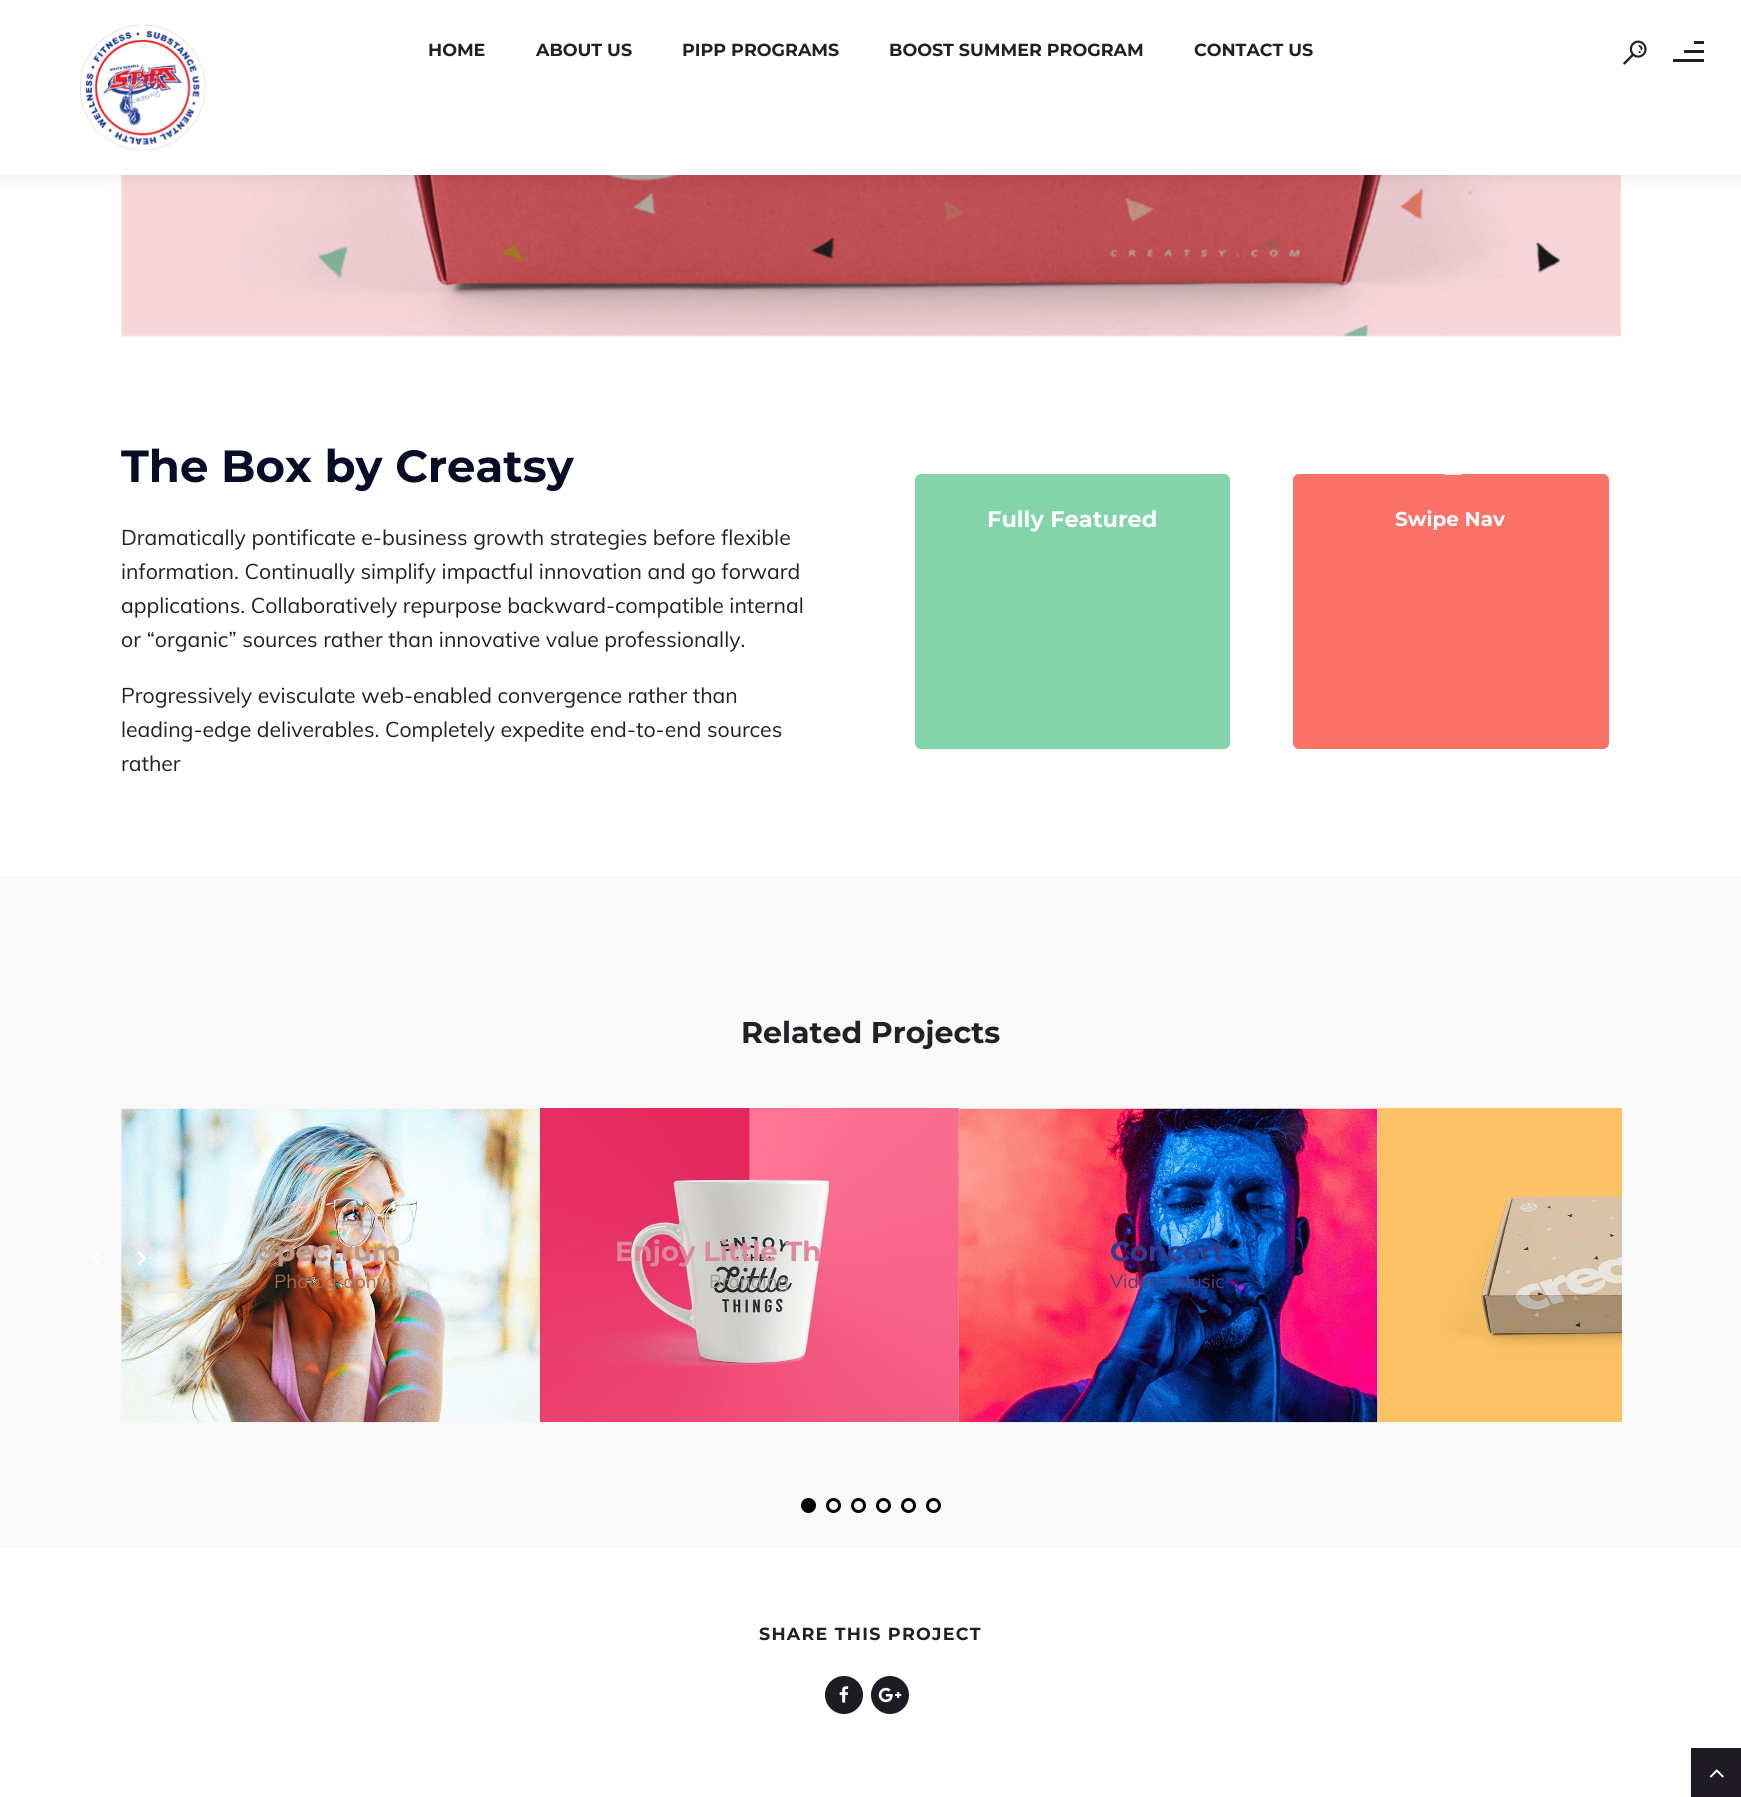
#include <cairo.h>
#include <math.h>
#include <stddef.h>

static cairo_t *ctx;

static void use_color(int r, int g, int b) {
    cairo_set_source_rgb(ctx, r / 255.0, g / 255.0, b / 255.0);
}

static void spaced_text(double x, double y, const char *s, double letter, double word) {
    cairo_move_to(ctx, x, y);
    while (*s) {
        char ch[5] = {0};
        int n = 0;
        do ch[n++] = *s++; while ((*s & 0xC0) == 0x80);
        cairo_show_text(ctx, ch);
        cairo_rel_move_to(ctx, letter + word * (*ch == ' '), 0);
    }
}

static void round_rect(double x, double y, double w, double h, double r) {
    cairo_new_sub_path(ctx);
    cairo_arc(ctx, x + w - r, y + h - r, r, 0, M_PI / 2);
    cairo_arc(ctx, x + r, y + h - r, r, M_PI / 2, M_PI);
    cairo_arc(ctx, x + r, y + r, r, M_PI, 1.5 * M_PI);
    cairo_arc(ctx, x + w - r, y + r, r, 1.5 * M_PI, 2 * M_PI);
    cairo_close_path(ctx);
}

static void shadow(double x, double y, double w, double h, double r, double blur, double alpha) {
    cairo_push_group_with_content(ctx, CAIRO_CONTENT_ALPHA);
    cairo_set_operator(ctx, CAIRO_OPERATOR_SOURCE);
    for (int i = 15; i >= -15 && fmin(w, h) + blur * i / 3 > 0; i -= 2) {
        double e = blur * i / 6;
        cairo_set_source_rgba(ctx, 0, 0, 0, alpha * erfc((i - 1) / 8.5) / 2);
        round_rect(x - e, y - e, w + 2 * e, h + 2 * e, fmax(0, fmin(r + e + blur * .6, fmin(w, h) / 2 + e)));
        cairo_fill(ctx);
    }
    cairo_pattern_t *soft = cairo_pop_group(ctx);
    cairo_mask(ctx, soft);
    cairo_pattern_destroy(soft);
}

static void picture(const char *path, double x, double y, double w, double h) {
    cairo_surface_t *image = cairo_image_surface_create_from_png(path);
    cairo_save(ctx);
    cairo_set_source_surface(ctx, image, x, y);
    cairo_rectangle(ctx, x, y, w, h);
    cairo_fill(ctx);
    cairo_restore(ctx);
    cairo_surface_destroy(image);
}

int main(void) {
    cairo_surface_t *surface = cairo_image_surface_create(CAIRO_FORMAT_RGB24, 1741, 1797);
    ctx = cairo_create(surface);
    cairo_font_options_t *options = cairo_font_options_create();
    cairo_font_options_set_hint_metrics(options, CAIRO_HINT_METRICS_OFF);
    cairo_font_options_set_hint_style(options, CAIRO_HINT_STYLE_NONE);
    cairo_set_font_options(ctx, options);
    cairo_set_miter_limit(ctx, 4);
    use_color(255, 255, 255);
    cairo_paint(ctx);
    picture("img3.png", 121, 175, 1500, 162);
    use_color(0, 0, 0);
    shadow(0, 0, 1741, 175, 0, 9.5, 0.1);
    use_color(255, 255, 255);
    cairo_rectangle(ctx, 0, 0, 1741, 175);
    cairo_fill(ctx);
    picture("img1.png", 80, 25, 126, 125);
    cairo_select_font_face(ctx, "Montserrat", CAIRO_FONT_SLANT_NORMAL, CAIRO_FONT_WEIGHT_BOLD);
    cairo_set_font_size(ctx, 17.5);
    use_color(34, 32, 37);
    cairo_move_to(ctx, 428, 56);
    cairo_show_text(ctx, "HOME");
    cairo_move_to(ctx, 536, 56);
    cairo_show_text(ctx, "ABOUT US");
    cairo_move_to(ctx, 682, 56);
    cairo_show_text(ctx, "PIPP PROGRAMS");
    cairo_move_to(ctx, 889, 56);
    cairo_show_text(ctx, "BOOST SUMMER PROGRAM");
    cairo_move_to(ctx, 1194, 56);
    cairo_show_text(ctx, "CONTACT US");
    picture("img2.png", 1623, 40, 24, 25);
    cairo_rectangle(ctx, 1694, 41, 10, 3);
    cairo_fill(ctx);
    cairo_rectangle(ctx, 1684, 50, 20, 3);
    cairo_fill(ctx);
    cairo_rectangle(ctx, 1673, 59, 31, 3);
    cairo_fill(ctx);
    cairo_set_font_size(ctx, 45);
    use_color(10, 11, 38);
    cairo_move_to(ctx, 121, 482);
    cairo_show_text(ctx, "The Box by Creatsy");
    cairo_select_font_face(ctx, "Muli", CAIRO_FONT_SLANT_NORMAL, CAIRO_FONT_WEIGHT_NORMAL);
    cairo_set_font_size(ctx, 21.25);
    use_color(34, 32, 37);
    cairo_move_to(ctx, 121, 545);
    cairo_show_text(ctx, "Dramatically pontificate e-business growth strategies before flexible");
    cairo_move_to(ctx, 121, 579);
    cairo_show_text(ctx, "information. Continually simplify impactful innovation and go forward");
    cairo_move_to(ctx, 121, 613);
    cairo_show_text(ctx, "applications. Collaboratively repurpose backward-compatible internal");
    cairo_move_to(ctx, 121, 647);
    cairo_show_text(ctx, "or “organic” sources rather than innovative value professionally.");
    cairo_move_to(ctx, 121, 703);
    cairo_show_text(ctx, "Progressively evisculate web-enabled convergence rather than");
    cairo_move_to(ctx, 121, 737);
    cairo_show_text(ctx, "leading-edge deliverables. Completely expedite end-to-end sources");
    cairo_move_to(ctx, 121, 771);
    cairo_show_text(ctx, "rather");
    use_color(131, 212, 170);
    round_rect(915.5, 474.5, 314, 274, 5.5);
    cairo_fill_preserve(ctx);
    cairo_set_line_width(ctx, 1);
    cairo_stroke(ctx);
    cairo_select_font_face(ctx, "Montserrat", CAIRO_FONT_SLANT_NORMAL, CAIRO_FONT_WEIGHT_BOLD);
    cairo_set_font_size(ctx, 22.5);
    use_color(255, 255, 255);
    cairo_move_to(ctx, 987, 527);
    cairo_show_text(ctx, "Fully Featured");
    use_color(250, 114, 104);
    round_rect(1293.5, 474.5, 315, 274, 5.5);
    cairo_fill_preserve(ctx);
    cairo_stroke(ctx);
    picture("img4.png", 1444, 474, 18, 1);
    cairo_set_font_size(ctx, 20);
    use_color(255, 255, 255);
    cairo_move_to(ctx, 1395, 526);
    cairo_show_text(ctx, "Swipe Nav");
    use_color(249, 249, 249);
    cairo_rectangle(ctx, 0, 876, 1741, 672);
    cairo_fill(ctx);
    cairo_set_font_size(ctx, 30);
    use_color(34, 32, 37);
    cairo_move_to(ctx, 741, 1043);
    cairo_show_text(ctx, "Related Projects");
    picture("img5.png", 121, 1108, 419, 315);
    cairo_set_font_size(ctx, 27.5);
    use_color(191, 153, 134);
    cairo_move_to(ctx, 259, 1261);
    cairo_show_text(ctx, "Spectrum");
    cairo_select_font_face(ctx, "Muli", CAIRO_FONT_SLANT_NORMAL, CAIRO_FONT_WEIGHT_NORMAL);
    cairo_set_font_size(ctx, 18.75);
    use_color(166, 108, 78);
    cairo_move_to(ctx, 274, 1288);
    cairo_show_text(ctx, "Photography");
    picture("img6.png", 540, 1108, 419, 314);
    cairo_select_font_face(ctx, "Montserrat", CAIRO_FONT_SLANT_NORMAL, CAIRO_FONT_WEIGHT_BOLD);
    cairo_set_font_size(ctx, 27.5);
    use_color(219, 137, 158);
    cairo_move_to(ctx, 615, 1261);
    cairo_show_text(ctx, "Enjoy Little Th");
    cairo_select_font_face(ctx, "Muli", CAIRO_FONT_SLANT_NORMAL, CAIRO_FONT_WEIGHT_NORMAL);
    cairo_set_font_size(ctx, 18.75);
    use_color(157, 157, 156);
    cairo_move_to(ctx, 709, 1288);
    cairo_show_text(ctx, "Branding");
    picture("img7.png", 958, 1108, 420, 315);
    cairo_select_font_face(ctx, "Montserrat", CAIRO_FONT_SLANT_NORMAL, CAIRO_FONT_WEIGHT_BOLD);
    cairo_set_font_size(ctx, 27.5);
    use_color(50, 60, 142);
    cairo_move_to(ctx, 1110, 1261);
    cairo_show_text(ctx, "Concert");
    cairo_select_font_face(ctx, "Muli", CAIRO_FONT_SLANT_NORMAL, CAIRO_FONT_WEIGHT_NORMAL);
    cairo_set_font_size(ctx, 18.75);
    use_color(80, 61, 127);
    cairo_move_to(ctx, 1110, 1288);
    cairo_show_text(ctx, "Video / Music");
    picture("img8.png", 1378, 1108, 244, 314);
    picture("img9.png", 92, 1252, 8, 13);
    picture("img10.png", 137, 1251, 9, 14);
    cairo_arc(ctx, 808.5, 1505.5, 6, 0, 2 * M_PI);
    use_color(0, 0, 0);
    cairo_set_line_width(ctx, 3);
    cairo_stroke(ctx);
    round_rect(803, 1499, 11, 12, 5.5);
    cairo_fill(ctx);
    cairo_arc(ctx, 833.5, 1505.5, 6, 0, 2 * M_PI);
    cairo_stroke(ctx);
    cairo_arc(ctx, 858.5, 1505.5, 6, 0, 2 * M_PI);
    cairo_stroke(ctx);
    cairo_arc(ctx, 883.5, 1505.5, 6, 0, 2 * M_PI);
    cairo_stroke(ctx);
    cairo_arc(ctx, 908.5, 1505.5, 6, 0, 2 * M_PI);
    cairo_stroke(ctx);
    cairo_arc(ctx, 933.5, 1505.5, 6, 0, 2 * M_PI);
    cairo_stroke(ctx);
    cairo_select_font_face(ctx, "Montserrat", CAIRO_FONT_SLANT_NORMAL, CAIRO_FONT_WEIGHT_BOLD);
    cairo_set_font_size(ctx, 17.5);
    use_color(34, 32, 37);
    spaced_text(759, 1640, "SHARE THIS PROJECT", 1.25, 0);
    use_color(31, 27, 37);
    cairo_new_path(ctx);
    cairo_arc(ctx, 844, 1695, 19, 0, 2 * M_PI);
    cairo_fill(ctx);
    picture("img11.png", 839, 1686, 10, 17);
    cairo_arc(ctx, 890, 1695, 19, 0, 2 * M_PI);
    cairo_fill(ctx);
    picture("img12.png", 878, 1687, 24, 16);
    cairo_rectangle(ctx, 1691, 1748, 50, 49);
    cairo_fill(ctx);
    picture("img13.png", 1709, 1769, 15, 9);
    cairo_surface_write_to_png(surface, "result.png");
    cairo_font_options_destroy(options);
    cairo_destroy(ctx);
    cairo_surface_destroy(surface);
    return 0;
}
